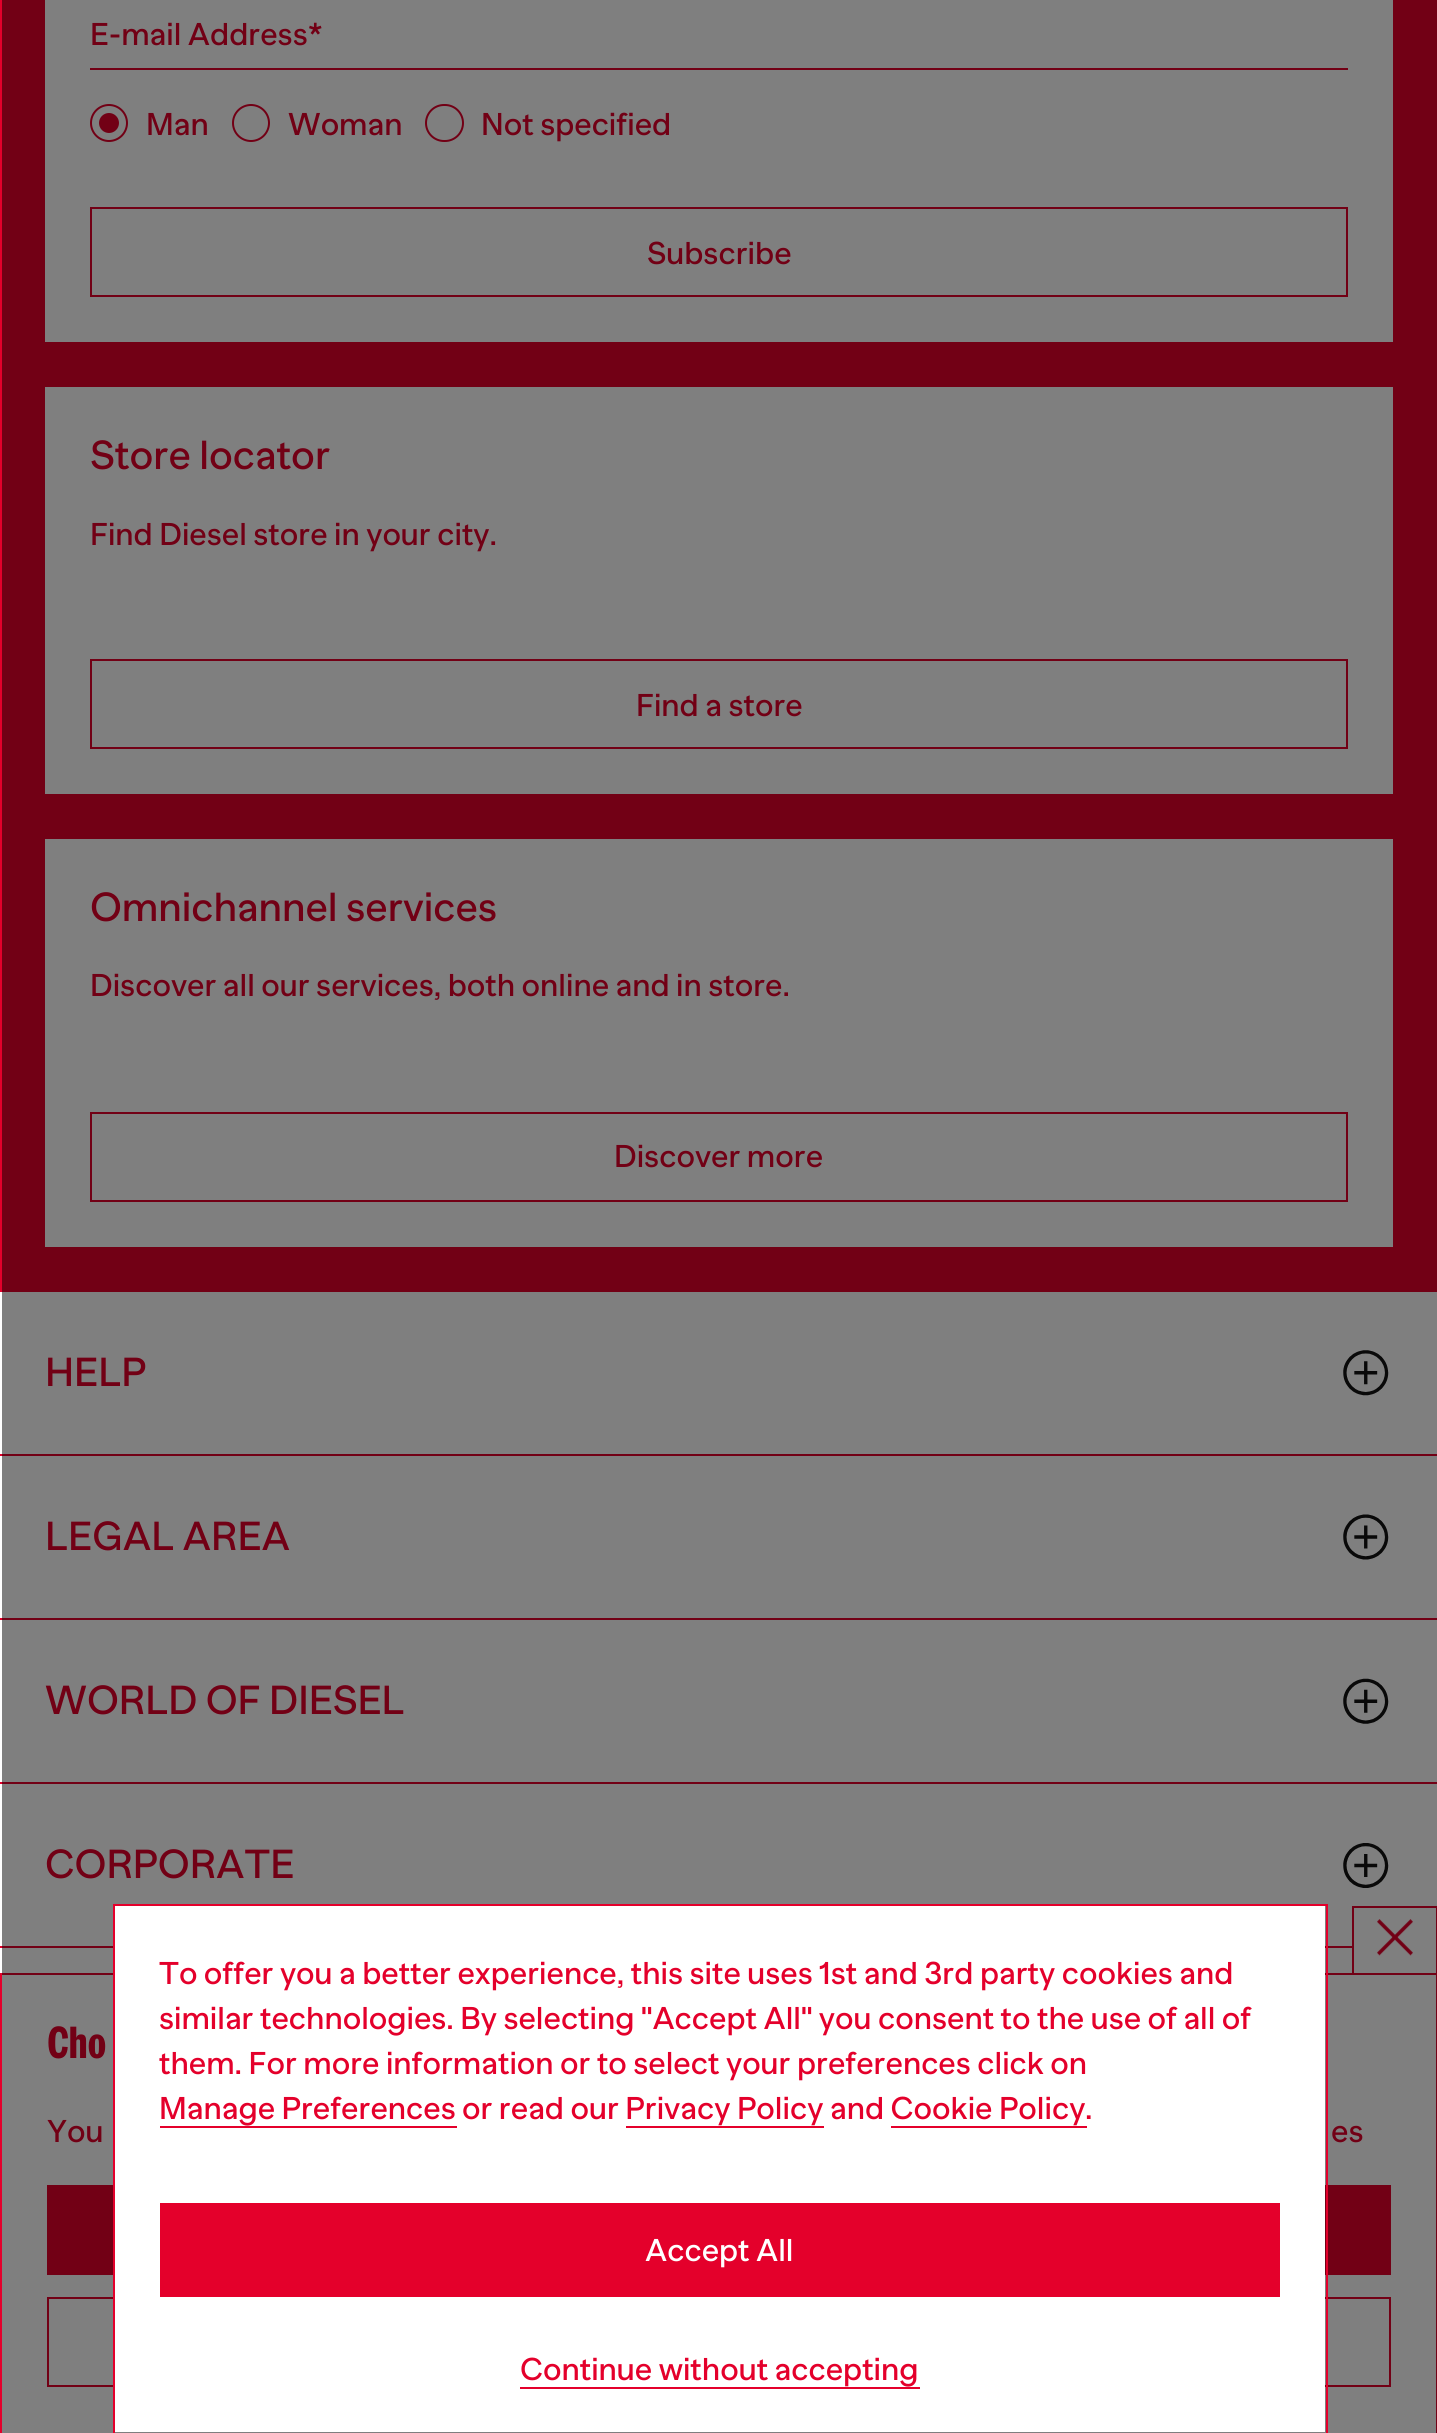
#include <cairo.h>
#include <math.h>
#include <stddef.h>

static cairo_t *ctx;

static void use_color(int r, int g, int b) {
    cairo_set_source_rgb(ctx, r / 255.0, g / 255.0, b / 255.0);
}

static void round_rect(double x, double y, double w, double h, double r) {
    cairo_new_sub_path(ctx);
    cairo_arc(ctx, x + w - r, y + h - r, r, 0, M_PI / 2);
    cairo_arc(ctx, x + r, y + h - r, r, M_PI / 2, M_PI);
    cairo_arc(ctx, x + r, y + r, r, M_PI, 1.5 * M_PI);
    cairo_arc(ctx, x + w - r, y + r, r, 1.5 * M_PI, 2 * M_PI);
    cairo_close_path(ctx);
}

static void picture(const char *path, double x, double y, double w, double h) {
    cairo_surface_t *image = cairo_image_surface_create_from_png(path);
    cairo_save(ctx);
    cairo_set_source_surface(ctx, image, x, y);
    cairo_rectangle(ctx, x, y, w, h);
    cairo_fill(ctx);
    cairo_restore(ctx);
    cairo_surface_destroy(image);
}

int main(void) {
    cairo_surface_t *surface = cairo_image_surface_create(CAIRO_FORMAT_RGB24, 1437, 2433);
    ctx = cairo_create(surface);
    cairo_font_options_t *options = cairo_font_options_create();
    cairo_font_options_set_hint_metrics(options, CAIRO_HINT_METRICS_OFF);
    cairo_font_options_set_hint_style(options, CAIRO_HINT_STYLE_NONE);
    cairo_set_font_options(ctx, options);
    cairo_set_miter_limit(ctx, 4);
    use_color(255, 255, 255);
    cairo_paint(ctx);
    use_color(228, 0, 43);
    cairo_rectangle(ctx, 0, 0, 1437, 1292);
    cairo_fill(ctx);
    use_color(255, 255, 255);
    cairo_rectangle(ctx, 45, 0, 1348, 342);
    cairo_fill(ctx);
    cairo_select_font_face(ctx, "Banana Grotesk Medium", CAIRO_FONT_SLANT_NORMAL, CAIRO_FONT_WEIGHT_NORMAL);
    cairo_set_font_size(ctx, 31.5);
    use_color(228, 0, 43);
    cairo_move_to(ctx, 90, 45);
    cairo_show_text(ctx, "E-mail Address*");
    cairo_rectangle(ctx, 90, 68, 1258, 2);
    cairo_fill(ctx);
    cairo_arc(ctx, 109, 123, 18, 0, 2 * M_PI);
    cairo_stroke(ctx);
    cairo_arc(ctx, 109, 123, 10, 0, 2 * M_PI);
    cairo_fill(ctx);
    cairo_move_to(ctx, 146, 135);
    cairo_show_text(ctx, "Man");
    cairo_new_path(ctx);
    cairo_arc(ctx, 251, 123, 18, 0, 2 * M_PI);
    cairo_stroke(ctx);
    cairo_move_to(ctx, 288, 135);
    cairo_show_text(ctx, "Woman");
    round_rect(426, 105, 37, 36, 18);
    cairo_stroke(ctx);
    cairo_move_to(ctx, 481, 135);
    cairo_show_text(ctx, "Not specified");
    cairo_rectangle(ctx, 91, 208, 1256, 88);
    cairo_stroke(ctx);
    cairo_move_to(ctx, 647, 264);
    cairo_show_text(ctx, "Subscribe");
    use_color(255, 255, 255);
    cairo_rectangle(ctx, 45, 387, 1348, 407);
    cairo_fill(ctx);
    cairo_set_font_size(ctx, 40.5);
    use_color(228, 0, 43);
    cairo_move_to(ctx, 90, 469);
    cairo_show_text(ctx, "Store locator");
    cairo_set_font_size(ctx, 31.5);
    cairo_move_to(ctx, 90, 545);
    cairo_show_text(ctx, "Find Diesel store in your city.");
    cairo_rectangle(ctx, 91, 660, 1256, 88);
    cairo_stroke(ctx);
    cairo_move_to(ctx, 636, 716);
    cairo_show_text(ctx, "Find a store");
    use_color(255, 255, 255);
    cairo_rectangle(ctx, 45, 839, 1348, 408);
    cairo_fill(ctx);
    cairo_set_font_size(ctx, 40.5);
    use_color(228, 0, 43);
    cairo_move_to(ctx, 90, 921);
    cairo_show_text(ctx, "Omnichannel services");
    cairo_set_font_size(ctx, 31.5);
    cairo_move_to(ctx, 90, 996);
    cairo_show_text(ctx, "Discover all our services, both online and in store.");
    cairo_rectangle(ctx, 91, 1113, 1256, 88);
    cairo_stroke(ctx);
    cairo_move_to(ctx, 614, 1167);
    cairo_show_text(ctx, "Discover more");
    cairo_rectangle(ctx, 0, 1454, 1437, 2);
    cairo_fill(ctx);
    cairo_set_font_size(ctx, 40.5);
    cairo_move_to(ctx, 45, 1386);
    cairo_show_text(ctx, "HELP");
    picture("img1.png", 1343, 1350, 46, 46);
    cairo_rectangle(ctx, 0, 1618, 1437, 2);
    cairo_fill(ctx);
    cairo_move_to(ctx, 45, 1550);
    cairo_show_text(ctx, "LEGAL AREA");
    picture("img2.png", 1343, 1514, 46, 46);
    cairo_rectangle(ctx, 0, 1782, 1437, 2);
    cairo_fill(ctx);
    cairo_move_to(ctx, 45, 1714);
    cairo_show_text(ctx, "WORLD OF DIESEL");
    picture("img3.png", 1343, 1678, 46, 46);
    cairo_rectangle(ctx, 0, 1946, 1352, 2);
    cairo_fill(ctx);
    cairo_move_to(ctx, 45, 1878);
    cairo_show_text(ctx, "CORPORATE");
    picture("img4.png", 1343, 1843, 46, 45);
    cairo_rectangle(ctx, 1352, 1906, 85, 2);
    cairo_fill(ctx);
    cairo_rectangle(ctx, 1436, 1906, 1, 67);
    cairo_fill(ctx);
    cairo_rectangle(ctx, 1352, 1906, 2, 67);
    cairo_fill(ctx);
    picture("img5.png", 1377, 1919, 36, 37);
    cairo_rectangle(ctx, 1, 1974, 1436, 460);
    cairo_stroke(ctx);
    cairo_select_font_face(ctx, "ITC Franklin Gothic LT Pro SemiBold", CAIRO_FONT_SLANT_NORMAL, CAIRO_FONT_WEIGHT_NORMAL);
    cairo_set_font_size(ctx, 47);
    cairo_move_to(ctx, 47, 2058);
    cairo_show_text(ctx, "Cho");
    cairo_select_font_face(ctx, "Banana Grotesk Medium", CAIRO_FONT_SLANT_NORMAL, CAIRO_FONT_WEIGHT_NORMAL);
    cairo_set_font_size(ctx, 31.5);
    cairo_move_to(ctx, 47, 2142);
    cairo_show_text(ctx, "You");
    cairo_move_to(ctx, 1331, 2142);
    cairo_show_text(ctx, "es");
    cairo_rectangle(ctx, 47, 2185, 1344, 90);
    cairo_fill(ctx);
    cairo_rectangle(ctx, 48, 2298, 1342, 88);
    cairo_stroke(ctx);
    cairo_set_source_rgba(ctx, 0, 0, 0, 0.5);
    cairo_rectangle(ctx, 2, 0, 1435, 2433);
    cairo_fill(ctx);
    cairo_rectangle(ctx, 114, 1905, 1213, 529);
    use_color(228, 0, 43);
    cairo_stroke(ctx);
    use_color(255, 255, 255);
    cairo_rectangle(ctx, 115, 1906, 1210, 526);
    cairo_fill(ctx);
    use_color(228, 0, 43);
    cairo_move_to(ctx, 159, 1984);
    cairo_show_text(ctx, "To offer you a better experience, this site uses 1st and 3rd party cookies and");
    cairo_move_to(ctx, 159, 2029);
    cairo_show_text(ctx, "similar technologies. By selecting \"Accept All\" you consent to the use of all of");
    cairo_move_to(ctx, 159, 2074);
    cairo_show_text(ctx, "them. For more information or to select your preferences click on");
    cairo_move_to(ctx, 159, 2119);
    cairo_show_text(ctx, "Manage Preferences");
    cairo_rectangle(ctx, 160, 2126, 297, 2);
    cairo_fill(ctx);
    cairo_move_to(ctx, 462, 2119);
    cairo_show_text(ctx, "or read our Privacy Policy");
    cairo_move_to(ctx, 830, 2119);
    cairo_show_text(ctx, "and Cookie Policy");
    cairo_move_to(ctx, 1085, 2119);
    cairo_show_text(ctx, ".");
    cairo_rectangle(ctx, 626, 2126, 198, 2);
    cairo_fill(ctx);
    cairo_rectangle(ctx, 891, 2126, 196, 2);
    cairo_fill(ctx);
    cairo_rectangle(ctx, 160, 2203, 1120, 94);
    cairo_fill(ctx);
    use_color(255, 255, 255);
    cairo_move_to(ctx, 645, 2261);
    cairo_show_text(ctx, "Accept All");
    use_color(228, 0, 43);
    cairo_move_to(ctx, 520, 2380);
    cairo_show_text(ctx, "Continue without accepting");
    cairo_rectangle(ctx, 520, 2387, 400, 2);
    cairo_fill(ctx);
    cairo_surface_write_to_png(surface, "result.png");
    cairo_font_options_destroy(options);
    cairo_destroy(ctx);
    cairo_surface_destroy(surface);
    return 0;
}
